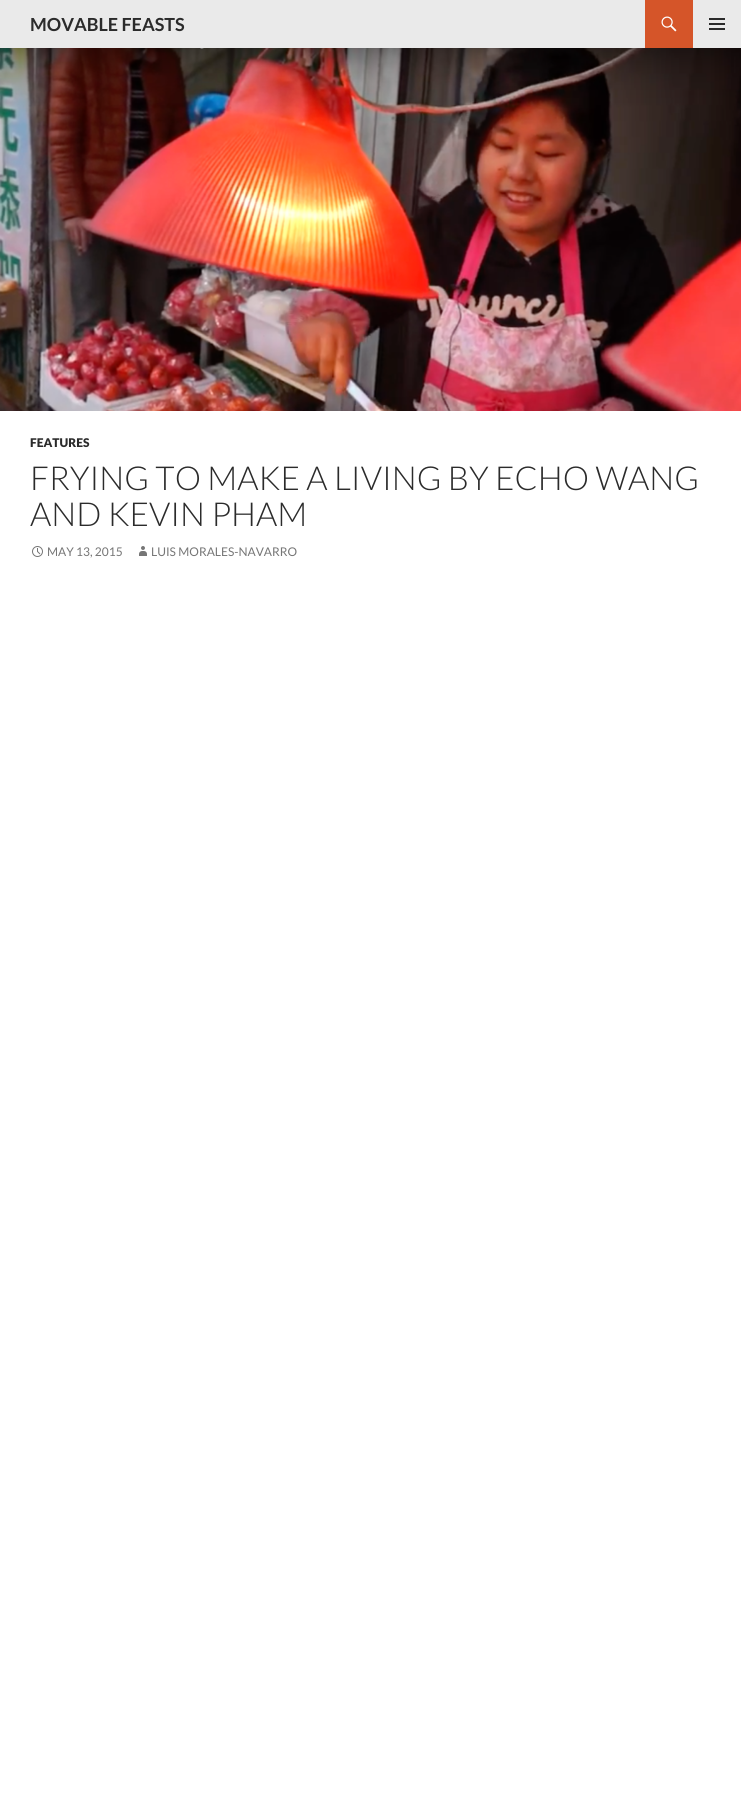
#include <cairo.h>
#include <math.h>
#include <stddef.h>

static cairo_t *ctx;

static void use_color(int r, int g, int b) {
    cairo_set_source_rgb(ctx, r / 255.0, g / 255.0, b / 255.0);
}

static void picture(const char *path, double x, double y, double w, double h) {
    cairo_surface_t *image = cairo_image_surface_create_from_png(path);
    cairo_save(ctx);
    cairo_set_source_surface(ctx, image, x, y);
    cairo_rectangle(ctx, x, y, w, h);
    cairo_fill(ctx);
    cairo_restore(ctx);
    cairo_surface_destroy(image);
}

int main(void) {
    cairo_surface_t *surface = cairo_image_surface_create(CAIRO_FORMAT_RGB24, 741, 1805);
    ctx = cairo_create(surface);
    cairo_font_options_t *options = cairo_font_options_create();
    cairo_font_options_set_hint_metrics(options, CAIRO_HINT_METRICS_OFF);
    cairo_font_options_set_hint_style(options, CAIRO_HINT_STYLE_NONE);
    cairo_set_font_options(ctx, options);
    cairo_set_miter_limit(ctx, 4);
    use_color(255, 255, 255);
    cairo_paint(ctx);
    use_color(234, 234, 234);
    cairo_rectangle(ctx, 0, 0, 741, 48);
    cairo_fill(ctx);
    cairo_select_font_face(ctx, "Lato", CAIRO_FONT_SLANT_NORMAL, CAIRO_FONT_WEIGHT_BOLD);
    cairo_set_font_size(ctx, 18);
    use_color(43, 43, 43);
    cairo_move_to(ctx, 30, 31);
    cairo_show_text(ctx, "MOVABLE FEASTS");
    use_color(213, 85, 41);
    cairo_rectangle(ctx, 645, 0, 48, 48);
    cairo_fill(ctx);
    picture("img1.png", 661, 16, 16, 16);
    picture("img2.png", 709, 18, 16, 12);
    picture("img3.png", 0, 48, 741, 363);
    cairo_select_font_face(ctx, "Lato Black", CAIRO_FONT_SLANT_NORMAL, CAIRO_FONT_WEIGHT_NORMAL);
    cairo_set_font_size(ctx, 12);
    use_color(43, 43, 43);
    cairo_move_to(ctx, 30, 447);
    cairo_show_text(ctx, "FEATURES");
    cairo_select_font_face(ctx, "Lato Light", CAIRO_FONT_SLANT_NORMAL, CAIRO_FONT_WEIGHT_NORMAL);
    cairo_set_font_size(ctx, 33);
    cairo_move_to(ctx, 30, 490);
    cairo_show_text(ctx, "FRYING TO MAKE A LIVING BY ECHO WANG");
    cairo_move_to(ctx, 30, 526);
    cairo_show_text(ctx, "AND KEVIN PHAM");
    picture("img4.png", 32, 546, 11, 11);
    cairo_select_font_face(ctx, "Lato", CAIRO_FONT_SLANT_NORMAL, CAIRO_FONT_WEIGHT_NORMAL);
    cairo_set_font_size(ctx, 12);
    use_color(118, 118, 118);
    cairo_move_to(ctx, 47, 556);
    cairo_show_text(ctx, "MAY 13, 2015");
    picture("img5.png", 139, 546, 8, 10);
    cairo_move_to(ctx, 151, 556);
    cairo_show_text(ctx, "LUIS MORALES-NAVARRO");
    cairo_surface_write_to_png(surface, "result.png");
    cairo_font_options_destroy(options);
    cairo_destroy(ctx);
    cairo_surface_destroy(surface);
    return 0;
}
